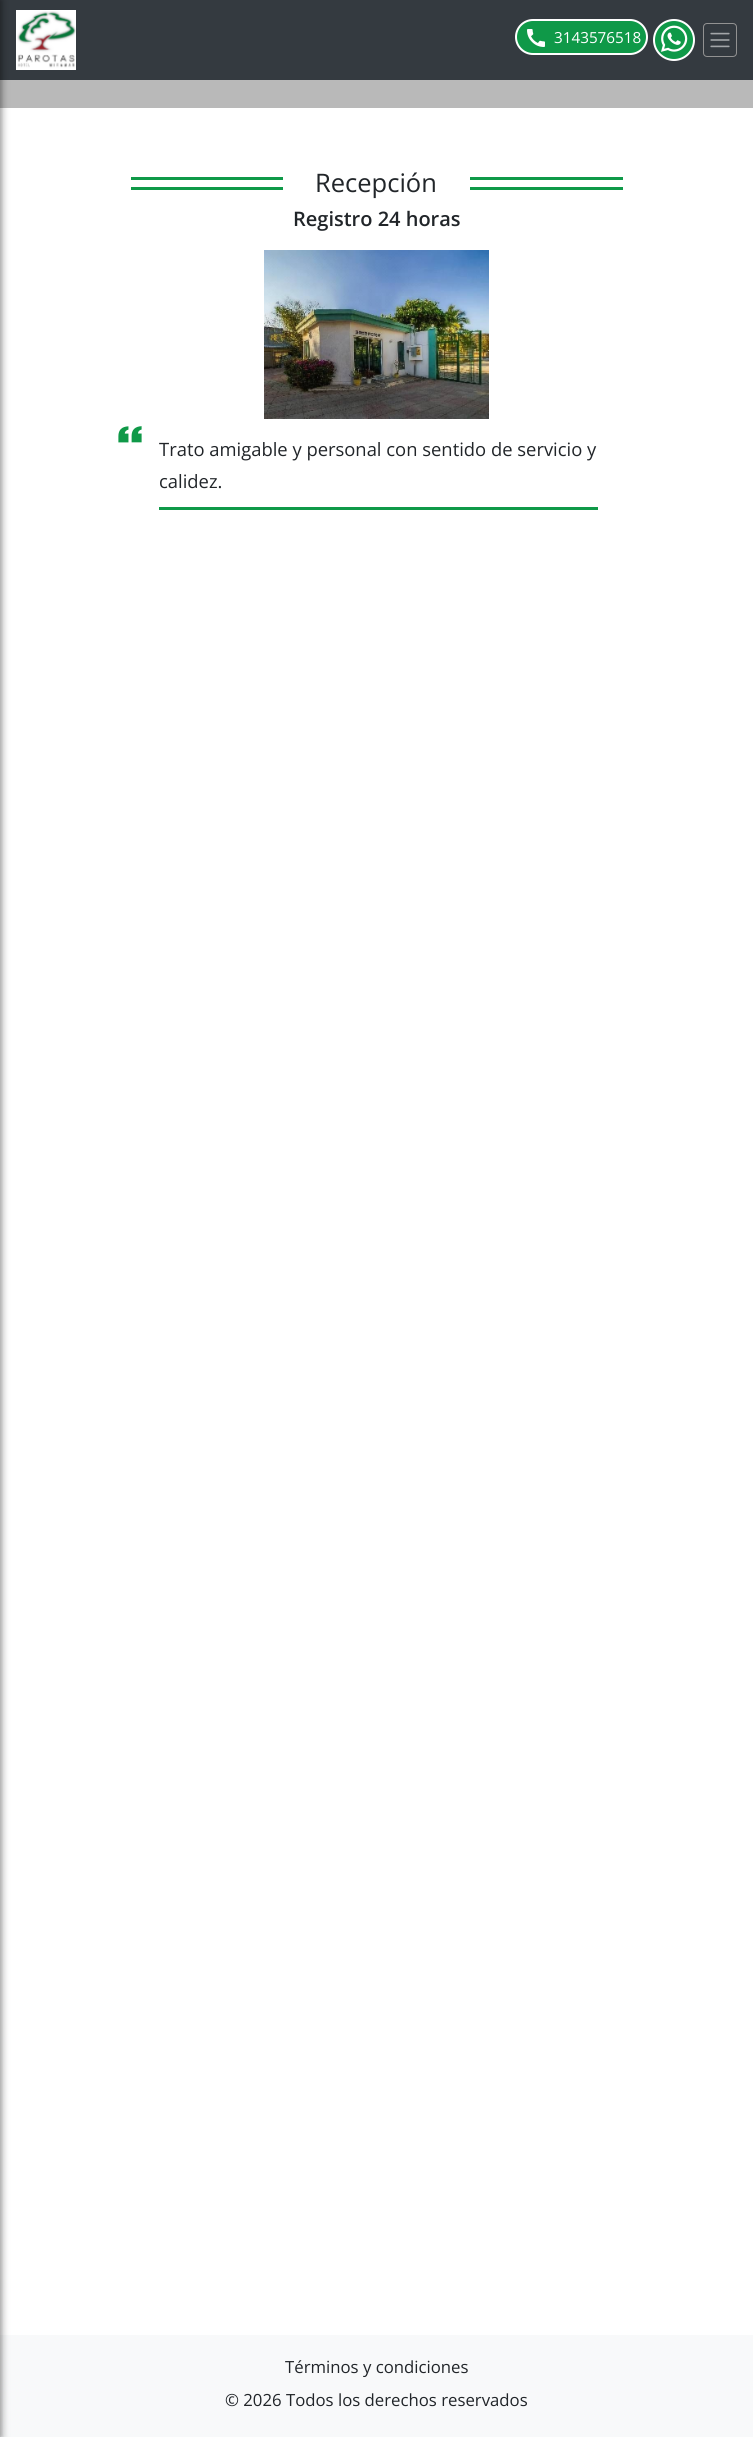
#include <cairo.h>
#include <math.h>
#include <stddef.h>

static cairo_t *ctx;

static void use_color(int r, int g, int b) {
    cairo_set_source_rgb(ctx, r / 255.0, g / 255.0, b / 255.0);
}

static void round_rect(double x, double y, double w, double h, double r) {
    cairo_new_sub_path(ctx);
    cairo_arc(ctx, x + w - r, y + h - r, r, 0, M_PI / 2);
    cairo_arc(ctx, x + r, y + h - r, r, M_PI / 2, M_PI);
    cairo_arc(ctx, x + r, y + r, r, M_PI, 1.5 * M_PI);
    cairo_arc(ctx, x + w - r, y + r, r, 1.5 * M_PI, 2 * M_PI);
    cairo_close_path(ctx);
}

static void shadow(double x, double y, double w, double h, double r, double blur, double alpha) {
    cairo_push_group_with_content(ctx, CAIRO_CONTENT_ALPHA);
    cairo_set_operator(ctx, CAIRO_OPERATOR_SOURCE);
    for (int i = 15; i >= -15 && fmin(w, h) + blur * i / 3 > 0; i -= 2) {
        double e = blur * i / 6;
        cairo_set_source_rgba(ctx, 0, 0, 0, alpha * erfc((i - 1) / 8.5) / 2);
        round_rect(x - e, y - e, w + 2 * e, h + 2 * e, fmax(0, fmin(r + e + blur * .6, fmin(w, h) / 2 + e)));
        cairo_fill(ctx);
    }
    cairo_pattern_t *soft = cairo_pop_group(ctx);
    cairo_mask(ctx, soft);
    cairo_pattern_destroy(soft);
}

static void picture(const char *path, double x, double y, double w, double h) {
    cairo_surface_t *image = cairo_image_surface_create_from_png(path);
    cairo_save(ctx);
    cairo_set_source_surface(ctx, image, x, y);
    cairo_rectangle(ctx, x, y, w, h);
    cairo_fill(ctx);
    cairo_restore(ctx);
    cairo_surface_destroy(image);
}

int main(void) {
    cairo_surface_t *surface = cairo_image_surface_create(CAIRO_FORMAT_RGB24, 753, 2437);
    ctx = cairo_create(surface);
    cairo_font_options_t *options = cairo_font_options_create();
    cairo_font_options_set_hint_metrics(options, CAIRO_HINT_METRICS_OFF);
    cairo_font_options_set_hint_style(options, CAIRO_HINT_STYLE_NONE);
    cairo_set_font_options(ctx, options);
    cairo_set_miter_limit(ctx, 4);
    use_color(255, 255, 255);
    cairo_paint(ctx);
    use_color(52, 58, 64);
    cairo_rectangle(ctx, 0, 0, 753, 80);
    cairo_fill(ctx);
    use_color(185, 185, 185);
    cairo_rectangle(ctx, 0, 80, 753, 28);
    cairo_fill(ctx);
    use_color(248, 249, 250);
    cairo_rectangle(ctx, 0, 2335, 753, 102);
    cairo_fill(ctx);
    use_color(0, 0, 0);
    shadow(-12, 0, 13, 2437, 0, 4, 0.5);
    use_color(255, 255, 255);
    cairo_rectangle(ctx, 16, 10, 60, 60);
    cairo_fill(ctx);
    picture("img1.png", 17, 11, 59, 57);
    use_color(15, 153, 72);
    round_rect(516, 20, 131, 34, 17);
    cairo_fill_preserve(ctx);
    use_color(255, 255, 255);
    cairo_stroke(ctx);
    picture("img2.png", 527, 29, 18, 18);
    cairo_select_font_face(ctx, "Open Sans", CAIRO_FONT_SLANT_NORMAL, CAIRO_FONT_WEIGHT_NORMAL);
    cairo_set_font_size(ctx, 15.25);
    cairo_move_to(ctx, 554, 43);
    cairo_show_text(ctx, "3143576518");
    use_color(15, 153, 72);
    cairo_new_path(ctx);
    cairo_arc(ctx, 674, 40, 20, 0, 2 * M_PI);
    cairo_fill_preserve(ctx);
    use_color(255, 255, 255);
    cairo_stroke(ctx);
    picture("img3.png", 661, 25, 27, 27);
    round_rect(703.5, 23.5, 33, 33, 3.5);
    use_color(146, 146, 146);
    cairo_set_line_width(ctx, 1);
    cairo_stroke(ctx);
    picture("img4.png", 710, 32, 20, 16);
    use_color(15, 153, 72);
    cairo_rectangle(ctx, 131, 177, 152, 3);
    cairo_fill(ctx);
    cairo_rectangle(ctx, 131, 187, 152, 3);
    cairo_fill(ctx);
    cairo_set_font_size(ctx, 25.5);
    use_color(33, 37, 41);
    cairo_move_to(ctx, 315, 192);
    cairo_show_text(ctx, "Recepción");
    use_color(15, 153, 72);
    cairo_rectangle(ctx, 470, 177, 153, 3);
    cairo_fill(ctx);
    cairo_rectangle(ctx, 470, 187, 153, 3);
    cairo_fill(ctx);
    cairo_select_font_face(ctx, "Open Sans SemiBold", CAIRO_FONT_SLANT_NORMAL, CAIRO_FONT_WEIGHT_NORMAL);
    cairo_set_font_size(ctx, 20);
    use_color(33, 37, 41);
    cairo_move_to(ctx, 293, 226);
    cairo_show_text(ctx, "Registro 24 horas");
    picture("img5.png", 264, 250, 225, 169);
    picture("img6.png", 118, 426, 24, 17);
    use_color(15, 153, 72);
    cairo_rectangle(ctx, 159, 507, 439, 3);
    cairo_fill(ctx);
    cairo_select_font_face(ctx, "Open Sans", CAIRO_FONT_SLANT_NORMAL, CAIRO_FONT_WEIGHT_NORMAL);
    cairo_set_font_size(ctx, 18.4);
    use_color(33, 37, 41);
    cairo_move_to(ctx, 159, 456);
    cairo_show_text(ctx, "Trato amigable y personal con sentido de servicio y");
    cairo_move_to(ctx, 159, 488);
    cairo_show_text(ctx, "calidez.");
    cairo_set_font_size(ctx, 16.75);
    cairo_move_to(ctx, 285, 2373);
    cairo_show_text(ctx, "Términos y condiciones");
    cairo_move_to(ctx, 225, 2406);
    cairo_show_text(ctx, "© 2026 Todos los derechos reservados");
    cairo_surface_write_to_png(surface, "result.png");
    cairo_font_options_destroy(options);
    cairo_destroy(ctx);
    cairo_surface_destroy(surface);
    return 0;
}
